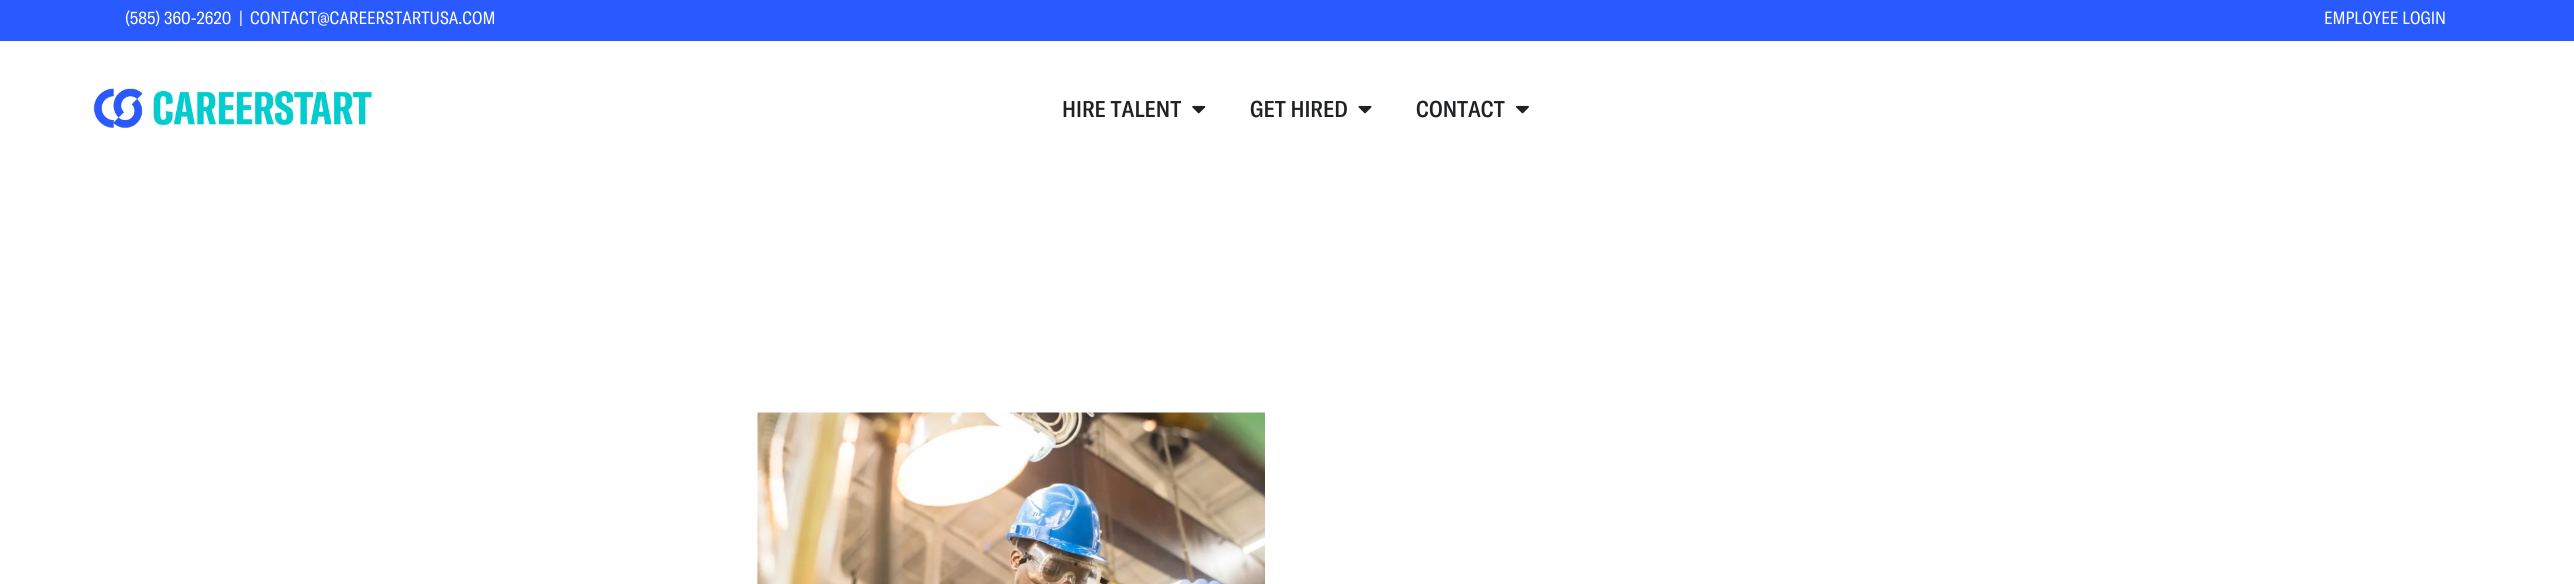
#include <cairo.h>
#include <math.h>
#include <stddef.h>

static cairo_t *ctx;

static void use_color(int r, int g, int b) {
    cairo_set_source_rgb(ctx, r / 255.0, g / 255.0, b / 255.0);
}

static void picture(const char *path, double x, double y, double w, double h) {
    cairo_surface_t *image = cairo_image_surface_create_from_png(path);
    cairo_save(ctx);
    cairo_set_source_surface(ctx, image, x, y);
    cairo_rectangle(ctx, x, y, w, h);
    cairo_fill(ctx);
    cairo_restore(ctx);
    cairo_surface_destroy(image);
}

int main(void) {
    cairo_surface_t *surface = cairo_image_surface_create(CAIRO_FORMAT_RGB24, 2574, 584);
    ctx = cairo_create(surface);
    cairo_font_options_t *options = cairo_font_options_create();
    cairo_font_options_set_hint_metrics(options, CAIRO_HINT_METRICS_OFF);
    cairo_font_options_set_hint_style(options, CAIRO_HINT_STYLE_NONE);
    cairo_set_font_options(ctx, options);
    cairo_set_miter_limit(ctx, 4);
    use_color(255, 255, 255);
    cairo_paint(ctx);
    use_color(40, 90, 255);
    cairo_rectangle(ctx, 0, 0, 2574, 41);
    cairo_fill(ctx);
    cairo_select_font_face(ctx, "GT America", CAIRO_FONT_SLANT_NORMAL, CAIRO_FONT_WEIGHT_NORMAL);
    cairo_set_font_size(ctx, 17.5);
    use_color(255, 255, 255);
    cairo_move_to(ctx, 125, 24);
    cairo_show_text(ctx, "(585) 360-2620");
    cairo_move_to(ctx, 239, 24);
    cairo_show_text(ctx, "|");
    cairo_move_to(ctx, 250, 24);
    cairo_show_text(ctx, "CONTACT@CAREERSTARTUSA.COM");
    cairo_move_to(ctx, 2324, 24);
    cairo_show_text(ctx, "EMPLOYEE LOGIN");
    picture("img1.png", 93, 88, 279, 41);
    cairo_select_font_face(ctx, "GT America Medium", CAIRO_FONT_SLANT_NORMAL, CAIRO_FONT_WEIGHT_NORMAL);
    cairo_set_font_size(ctx, 22.5);
    use_color(31, 33, 36);
    cairo_move_to(ctx, 1062, 117);
    cairo_show_text(ctx, "HIRE TALENT");
    picture("img2.png", 1192, 105, 14, 9);
    cairo_move_to(ctx, 1250, 117);
    cairo_show_text(ctx, "GET HIRED");
    picture("img3.png", 1358, 105, 14, 9);
    cairo_move_to(ctx, 1416, 117);
    cairo_show_text(ctx, "CONTACT");
    picture("img4.png", 1516, 105, 13, 9);
    picture("img5.png", 757, 412, 508, 172);
    cairo_surface_write_to_png(surface, "result.png");
    cairo_font_options_destroy(options);
    cairo_destroy(ctx);
    cairo_surface_destroy(surface);
    return 0;
}
